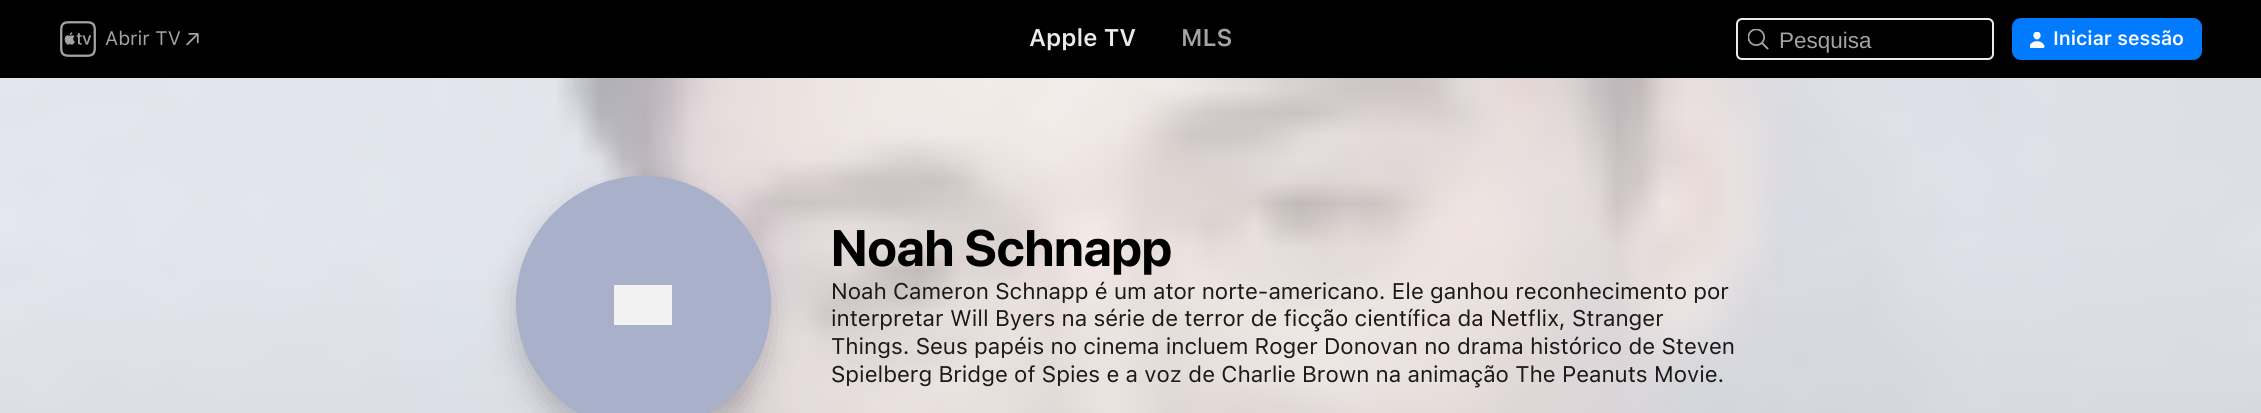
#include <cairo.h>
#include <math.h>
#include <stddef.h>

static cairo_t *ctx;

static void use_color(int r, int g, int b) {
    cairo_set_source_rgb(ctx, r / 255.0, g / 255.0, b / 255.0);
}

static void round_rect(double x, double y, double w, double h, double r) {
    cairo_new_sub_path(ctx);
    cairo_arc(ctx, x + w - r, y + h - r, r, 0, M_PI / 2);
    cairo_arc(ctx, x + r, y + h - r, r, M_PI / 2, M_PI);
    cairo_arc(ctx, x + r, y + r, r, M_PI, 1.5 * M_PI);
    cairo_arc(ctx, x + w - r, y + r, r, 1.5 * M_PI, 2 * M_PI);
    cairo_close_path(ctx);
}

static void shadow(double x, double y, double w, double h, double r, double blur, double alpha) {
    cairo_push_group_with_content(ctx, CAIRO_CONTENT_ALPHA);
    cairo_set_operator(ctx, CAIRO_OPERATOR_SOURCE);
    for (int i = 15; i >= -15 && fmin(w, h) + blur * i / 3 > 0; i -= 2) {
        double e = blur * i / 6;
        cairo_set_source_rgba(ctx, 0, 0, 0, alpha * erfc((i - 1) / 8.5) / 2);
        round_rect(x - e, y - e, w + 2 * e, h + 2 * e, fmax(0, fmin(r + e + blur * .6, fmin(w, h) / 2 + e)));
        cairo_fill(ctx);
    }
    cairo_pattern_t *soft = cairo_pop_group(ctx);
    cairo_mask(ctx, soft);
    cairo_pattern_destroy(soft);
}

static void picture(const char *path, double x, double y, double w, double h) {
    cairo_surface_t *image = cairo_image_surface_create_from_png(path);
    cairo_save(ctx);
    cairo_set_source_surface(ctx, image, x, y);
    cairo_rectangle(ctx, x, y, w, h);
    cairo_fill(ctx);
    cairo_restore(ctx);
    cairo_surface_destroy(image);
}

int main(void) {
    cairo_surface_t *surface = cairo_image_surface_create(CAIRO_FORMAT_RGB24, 2261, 413);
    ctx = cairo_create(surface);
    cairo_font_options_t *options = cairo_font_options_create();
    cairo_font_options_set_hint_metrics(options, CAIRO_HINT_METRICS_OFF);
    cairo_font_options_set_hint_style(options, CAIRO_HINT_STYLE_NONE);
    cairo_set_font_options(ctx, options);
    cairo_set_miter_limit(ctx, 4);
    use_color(255, 255, 255);
    cairo_paint(ctx);
    use_color(0, 0, 0);
    cairo_rectangle(ctx, 0, 0, 2261, 78);
    cairo_fill(ctx);
    picture("img1.png", 60, 21, 36, 36);
    cairo_select_font_face(ctx, "SF", CAIRO_FONT_SLANT_NORMAL, CAIRO_FONT_WEIGHT_NORMAL);
    cairo_set_font_size(ctx, 19.5);
    use_color(163, 163, 163);
    cairo_move_to(ctx, 105, 45);
    cairo_show_text(ctx, "Abrir TV");
    picture("img2.png", 186, 33, 13, 12);
    cairo_select_font_face(ctx, "SF SemiBold", CAIRO_FONT_SLANT_NORMAL, CAIRO_FONT_WEIGHT_NORMAL);
    cairo_set_font_size(ctx, 24);
    use_color(235, 235, 235);
    cairo_move_to(ctx, 1029, 46);
    cairo_show_text(ctx, "Apple TV");
    use_color(163, 163, 163);
    cairo_move_to(ctx, 1181, 46);
    cairo_show_text(ctx, "MLS");
    round_rect(1737, 19, 256, 40, 5);
    use_color(235, 235, 235);
    cairo_stroke(ctx);
    picture("img3.png", 1748, 29, 21, 21);
    cairo_select_font_face(ctx, "Liberation Sans", CAIRO_FONT_SLANT_NORMAL, CAIRO_FONT_WEIGHT_NORMAL);
    cairo_set_font_size(ctx, 22.5);
    use_color(163, 163, 163);
    cairo_move_to(ctx, 1779, 48);
    cairo_show_text(ctx, "Pesquisa");
    use_color(0, 122, 255);
    round_rect(2012, 18, 190, 42, 9);
    cairo_fill(ctx);
    picture("img4.png", 2030, 32, 15, 16);
    cairo_select_font_face(ctx, "SF SemiBold", CAIRO_FONT_SLANT_NORMAL, CAIRO_FONT_WEIGHT_NORMAL);
    cairo_set_font_size(ctx, 19.5);
    use_color(255, 255, 255);
    cairo_move_to(ctx, 2053, 45);
    cairo_show_text(ctx, "Iniciar sessão");
    picture("img5.png", 0, 78, 2261, 335);
    use_color(0, 0, 0);
    shadow(516, 191, 255, 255, 127.5, 15, 0.2);
    cairo_arc(ctx, 643.5, 303.5, 126.5, 0, 2 * M_PI);
    cairo_set_source_rgba(ctx, 0, 0, 0, 0.08);
    cairo_stroke(ctx);
    cairo_save(ctx);
    round_rect(516, 176, 255, 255, 127.5);
    cairo_clip(ctx);
    round_rect(516, 176, 255, 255, 127.5);
    cairo_clip(ctx);
    use_color(173, 183, 210);
    cairo_new_path(ctx);
    cairo_move_to(ctx, 643.5, 176);
    cairo_curve_to(ctx, 714, 176, 771, 233, 771, 303.5);
    cairo_line_to(ctx, 771, 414);
    cairo_line_to(ctx, 516, 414);
    cairo_line_to(ctx, 516, 303.5);
    cairo_curve_to(ctx, 516, 233, 573, 176, 643.5, 176);
    cairo_close_path(ctx);
    cairo_fill(ctx);
    cairo_restore(ctx);
    use_color(255, 255, 255);
    cairo_rectangle(ctx, 614, 285, 58, 40);
    cairo_fill(ctx);
    cairo_set_source_rgba(ctx, 0.502, 0.502, 0.502, 0.1);
    cairo_new_path(ctx);
    cairo_move_to(ctx, 644, 176);
    cairo_curve_to(ctx, 714, 176, 771, 233, 771, 304);
    cairo_curve_to(ctx, 771, 374, 714, 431, 644, 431);
    cairo_curve_to(ctx, 573, 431, 516, 374, 516, 304);
    cairo_curve_to(ctx, 516, 233, 573, 176, 644, 176);
    cairo_close_path(ctx);
    cairo_fill(ctx);
    cairo_select_font_face(ctx, "SF", CAIRO_FONT_SLANT_NORMAL, CAIRO_FONT_WEIGHT_BOLD);
    cairo_set_font_size(ctx, 51);
    use_color(0, 0, 0);
    cairo_move_to(ctx, 831, 266);
    cairo_show_text(ctx, "Noah Schnapp");
    cairo_select_font_face(ctx, "SF", CAIRO_FONT_SLANT_NORMAL, CAIRO_FONT_WEIGHT_NORMAL);
    cairo_set_font_size(ctx, 22.5);
    use_color(27, 26, 26);
    cairo_move_to(ctx, 831, 299);
    cairo_show_text(ctx, "Noah Cameron Schnapp é um ator norte-americano. Ele ganhou reconhecimento por");
    cairo_move_to(ctx, 831, 326);
    cairo_show_text(ctx, "interpretar Will Byers na série de terror de ficção científica da Netflix, Stranger");
    cairo_move_to(ctx, 831, 354);
    cairo_show_text(ctx, "Things. Seus papéis no cinema incluem Roger Donovan no drama histórico de Steven");
    cairo_move_to(ctx, 831, 382);
    cairo_show_text(ctx, "Spielberg Bridge of Spies e a voz de Charlie Brown na animação The Peanuts Movie.");
    cairo_surface_write_to_png(surface, "result.png");
    cairo_font_options_destroy(options);
    cairo_destroy(ctx);
    cairo_surface_destroy(surface);
    return 0;
}
